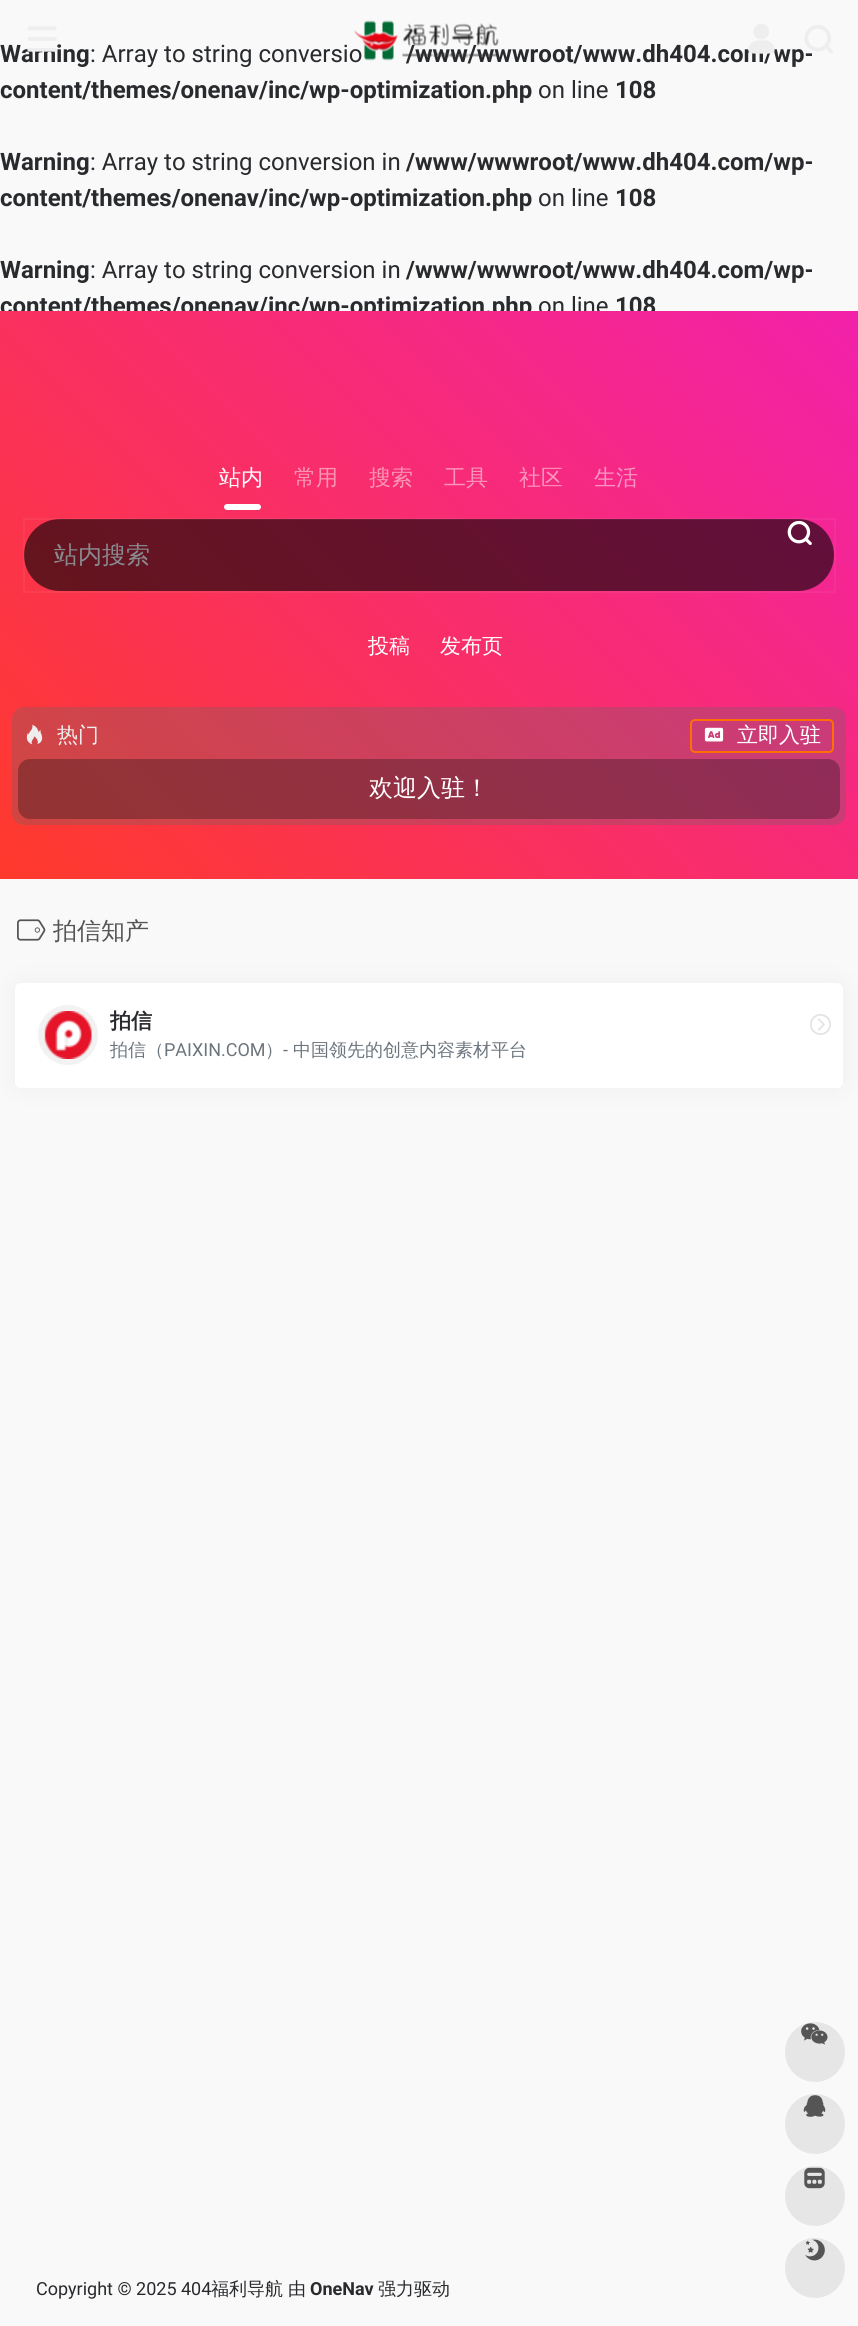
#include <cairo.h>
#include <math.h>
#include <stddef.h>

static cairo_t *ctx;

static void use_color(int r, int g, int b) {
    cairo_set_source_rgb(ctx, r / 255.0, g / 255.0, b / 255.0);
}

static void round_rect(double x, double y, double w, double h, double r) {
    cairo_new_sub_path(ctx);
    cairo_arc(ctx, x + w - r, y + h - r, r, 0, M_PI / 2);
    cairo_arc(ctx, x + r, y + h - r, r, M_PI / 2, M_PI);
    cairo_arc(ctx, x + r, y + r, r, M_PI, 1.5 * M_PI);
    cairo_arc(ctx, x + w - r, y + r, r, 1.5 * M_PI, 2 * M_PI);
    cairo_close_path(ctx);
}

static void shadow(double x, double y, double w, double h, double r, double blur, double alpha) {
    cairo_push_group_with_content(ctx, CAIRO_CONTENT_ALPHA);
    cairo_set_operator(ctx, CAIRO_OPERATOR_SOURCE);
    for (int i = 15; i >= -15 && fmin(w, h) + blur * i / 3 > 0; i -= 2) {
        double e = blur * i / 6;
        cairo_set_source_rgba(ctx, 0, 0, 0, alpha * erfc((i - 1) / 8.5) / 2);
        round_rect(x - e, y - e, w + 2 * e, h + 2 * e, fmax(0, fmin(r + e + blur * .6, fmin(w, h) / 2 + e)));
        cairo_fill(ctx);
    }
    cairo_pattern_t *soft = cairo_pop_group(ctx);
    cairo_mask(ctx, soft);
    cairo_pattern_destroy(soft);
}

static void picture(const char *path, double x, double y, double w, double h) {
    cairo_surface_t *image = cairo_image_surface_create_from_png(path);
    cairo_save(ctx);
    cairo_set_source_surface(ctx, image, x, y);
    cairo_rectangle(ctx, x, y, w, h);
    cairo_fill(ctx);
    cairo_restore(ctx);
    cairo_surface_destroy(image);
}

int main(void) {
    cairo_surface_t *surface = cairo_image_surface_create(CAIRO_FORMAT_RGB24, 858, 2326);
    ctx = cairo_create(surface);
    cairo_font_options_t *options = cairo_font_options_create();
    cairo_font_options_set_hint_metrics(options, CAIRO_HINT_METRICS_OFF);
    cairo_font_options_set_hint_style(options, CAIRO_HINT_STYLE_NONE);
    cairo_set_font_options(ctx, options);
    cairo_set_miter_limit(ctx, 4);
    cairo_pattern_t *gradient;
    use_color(249, 249, 249);
    cairo_paint(ctx);
    cairo_select_font_face(ctx, "Roboto", CAIRO_FONT_SLANT_NORMAL, CAIRO_FONT_WEIGHT_BOLD);
    cairo_set_font_size(ctx, 24);
    use_color(40, 42, 45);
    cairo_move_to(ctx, 0, 62);
    cairo_show_text(ctx, "Warning");
    cairo_select_font_face(ctx, "Roboto", CAIRO_FONT_SLANT_NORMAL, CAIRO_FONT_WEIGHT_NORMAL);
    cairo_move_to(ctx, 90, 62);
    cairo_show_text(ctx, ": Array to string conversio");
    cairo_select_font_face(ctx, "Roboto", CAIRO_FONT_SLANT_NORMAL, CAIRO_FONT_WEIGHT_BOLD);
    cairo_move_to(ctx, 406, 62);
    cairo_show_text(ctx, "/www/wwwroot/www.dh404.com/wp-");
    cairo_move_to(ctx, 0, 98);
    cairo_show_text(ctx, "content/themes/onenav/inc/wp-optimization.php");
    cairo_select_font_face(ctx, "Roboto", CAIRO_FONT_SLANT_NORMAL, CAIRO_FONT_WEIGHT_NORMAL);
    cairo_move_to(ctx, 538, 98);
    cairo_show_text(ctx, "on line");
    cairo_select_font_face(ctx, "Roboto", CAIRO_FONT_SLANT_NORMAL, CAIRO_FONT_WEIGHT_BOLD);
    cairo_move_to(ctx, 615, 98);
    cairo_show_text(ctx, "108");
    cairo_move_to(ctx, 0, 170);
    cairo_show_text(ctx, "Warning");
    cairo_select_font_face(ctx, "Roboto", CAIRO_FONT_SLANT_NORMAL, CAIRO_FONT_WEIGHT_NORMAL);
    cairo_move_to(ctx, 90, 170);
    cairo_show_text(ctx, ": Array to string conversion in");
    cairo_select_font_face(ctx, "Roboto", CAIRO_FONT_SLANT_NORMAL, CAIRO_FONT_WEIGHT_BOLD);
    cairo_move_to(ctx, 406, 170);
    cairo_show_text(ctx, "/www/wwwroot/www.dh404.com/wp-");
    cairo_move_to(ctx, 0, 206);
    cairo_show_text(ctx, "content/themes/onenav/inc/wp-optimization.php");
    cairo_select_font_face(ctx, "Roboto", CAIRO_FONT_SLANT_NORMAL, CAIRO_FONT_WEIGHT_NORMAL);
    cairo_move_to(ctx, 538, 206);
    cairo_show_text(ctx, "on line");
    cairo_select_font_face(ctx, "Roboto", CAIRO_FONT_SLANT_NORMAL, CAIRO_FONT_WEIGHT_BOLD);
    cairo_move_to(ctx, 615, 206);
    cairo_show_text(ctx, "108");
    cairo_move_to(ctx, 0, 278);
    cairo_show_text(ctx, "Warning");
    cairo_select_font_face(ctx, "Roboto", CAIRO_FONT_SLANT_NORMAL, CAIRO_FONT_WEIGHT_NORMAL);
    cairo_move_to(ctx, 90, 278);
    cairo_show_text(ctx, ": Array to string conversion in");
    cairo_select_font_face(ctx, "Roboto", CAIRO_FONT_SLANT_NORMAL, CAIRO_FONT_WEIGHT_BOLD);
    cairo_move_to(ctx, 406, 278);
    cairo_show_text(ctx, "/www/wwwroot/www.dh404.com/wp-");
    cairo_move_to(ctx, 0, 314);
    cairo_show_text(ctx, "content/themes/onenav/inc/wp-optimization.php");
    cairo_select_font_face(ctx, "Roboto", CAIRO_FONT_SLANT_NORMAL, CAIRO_FONT_WEIGHT_NORMAL);
    cairo_move_to(ctx, 538, 314);
    cairo_show_text(ctx, "on line");
    cairo_select_font_face(ctx, "Roboto", CAIRO_FONT_SLANT_NORMAL, CAIRO_FONT_WEIGHT_BOLD);
    cairo_move_to(ctx, 615, 314);
    cairo_show_text(ctx, "108");
    picture("img1.png", 27, 26, 30, 26);
    picture("img2.png", 354, 20, 145, 41);
    picture("img3.png", 748, 24, 27, 30);
    picture("img4.png", 804, 25, 29, 29);
    gradient = cairo_pattern_create_linear(716, 1595, 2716, -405);
    cairo_pattern_add_color_stop_rgba(gradient, 0, 1, 0.227, 0.169, 1);
    cairo_pattern_add_color_stop_rgba(gradient, 0.5, 0.929, 0.09, 0.871, 1);
    cairo_pattern_add_color_stop_rgba(gradient, 1, 0.957, 0.153, 0.369, 1);
    cairo_set_source(ctx, gradient);
    cairo_pattern_destroy(gradient);
    cairo_rectangle(ctx, 0, 311, 858, 568);
    cairo_fill(ctx);
    cairo_select_font_face(ctx, "WenQuanYi Zen Hei Medium", CAIRO_FONT_SLANT_NORMAL, CAIRO_FONT_WEIGHT_NORMAL);
    cairo_set_font_size(ctx, 22);
    use_color(255, 255, 255);
    cairo_move_to(ctx, 219, 485);
    cairo_show_text(ctx, "站内");
    use_color(252, 150, 181);
    cairo_move_to(ctx, 294, 485);
    cairo_show_text(ctx, "常用");
    cairo_move_to(ctx, 369, 485);
    cairo_show_text(ctx, "搜索");
    use_color(251, 149, 188);
    cairo_move_to(ctx, 444, 485);
    cairo_show_text(ctx, "工具");
    cairo_move_to(ctx, 519, 485);
    cairo_show_text(ctx, "社区");
    use_color(251, 148, 195);
    cairo_move_to(ctx, 594, 485);
    cairo_show_text(ctx, "生活");
    use_color(255, 255, 255);
    round_rect(224, 504, 37, 6, 3);
    cairo_fill(ctx);
    cairo_set_source_rgba(ctx, 0, 0, 0, 0.6);
    round_rect(24, 519, 810, 72, 36);
    cairo_fill(ctx);
    cairo_rectangle(ctx, 24, 519, 811, 73);
    cairo_set_source_rgba(ctx, 1, 1, 1, 0.05);
    cairo_stroke(ctx);
    picture("img5.png", 787, 520, 25, 26);
    cairo_set_font_size(ctx, 24);
    use_color(136, 138, 143);
    cairo_move_to(ctx, 54, 563);
    cairo_show_text(ctx, "站内搜索");
    cairo_set_font_size(ctx, 21);
    use_color(255, 255, 255);
    cairo_move_to(ctx, 368, 653);
    cairo_show_text(ctx, "投稿");
    cairo_move_to(ctx, 440, 653);
    cairo_show_text(ctx, "发布页");
    cairo_set_source_rgba(ctx, 0.392, 0.392, 0.392, 0.3);
    round_rect(12, 707, 834, 118, 12);
    cairo_fill(ctx);
    picture("img6.png", 26, 724, 17, 21);
    use_color(238, 238, 238);
    cairo_move_to(ctx, 57, 742);
    cairo_show_text(ctx, "热门");
    round_rect(691, 720, 142, 32, 4);
    use_color(255, 111, 6);
    cairo_stroke(ctx);
    picture("img7.png", 704, 727, 20, 15);
    use_color(255, 255, 255);
    cairo_move_to(ctx, 737, 742);
    cairo_show_text(ctx, "立即入驻");
    cairo_set_source_rgba(ctx, 0.039, 0.047, 0.059, 0.3);
    round_rect(18, 759, 822, 60, 12);
    cairo_fill(ctx);
    cairo_set_font_size(ctx, 24);
    use_color(255, 255, 255);
    cairo_move_to(ctx, 369, 796);
    cairo_show_text(ctx, "欢迎入驻！");
    picture("img8.png", 17, 919, 29, 22);
    use_color(85, 85, 85);
    cairo_move_to(ctx, 53, 939);
    cairo_show_text(ctx, "拍信知产");
    use_color(158, 158, 158);
    shadow(23, 990, 813, 90, 0, 15, 0.2);
    use_color(255, 255, 255);
    round_rect(15, 983, 828, 105, 6);
    cairo_fill(ctx);
    use_color(242, 242, 242);
    cairo_arc(ctx, 68, 1035, 30, 0, 2 * M_PI);
    cairo_fill(ctx);
    picture("img9.png", 44, 1011, 48, 48);
    cairo_save(ctx);
    cairo_rectangle(ctx, 110, 1005, 703, 32);
    cairo_clip(ctx);
    cairo_select_font_face(ctx, "WenQuanYi Zen Hei", CAIRO_FONT_SLANT_NORMAL, CAIRO_FONT_WEIGHT_BOLD);
    cairo_set_font_size(ctx, 21);
    use_color(40, 42, 45);
    cairo_move_to(ctx, 110, 1028);
    cairo_show_text(ctx, "拍信");
    cairo_restore(ctx);
    cairo_set_font_size(ctx, 18);
    use_color(108, 117, 125);
    cairo_move_to(ctx, 110, 1056);
    cairo_show_text(ctx, "拍信（");
    cairo_select_font_face(ctx, "Roboto", CAIRO_FONT_SLANT_NORMAL, CAIRO_FONT_WEIGHT_NORMAL);
    cairo_move_to(ctx, 164, 1056);
    cairo_show_text(ctx, "PAIXIN.COM");
    cairo_select_font_face(ctx, "WenQuanYi Zen Hei Medium", CAIRO_FONT_SLANT_NORMAL, CAIRO_FONT_WEIGHT_NORMAL);
    cairo_move_to(ctx, 265, 1056);
    cairo_show_text(ctx, "）");
    cairo_select_font_face(ctx, "Roboto", CAIRO_FONT_SLANT_NORMAL, CAIRO_FONT_WEIGHT_NORMAL);
    cairo_move_to(ctx, 283, 1056);
    cairo_show_text(ctx, "-");
    cairo_select_font_face(ctx, "WenQuanYi Zen Hei Medium", CAIRO_FONT_SLANT_NORMAL, CAIRO_FONT_WEIGHT_NORMAL);
    cairo_move_to(ctx, 293, 1056);
    cairo_show_text(ctx, "中国领先的创意内容素材平台");
    picture("img10.png", 810, 1014, 21, 21);
    cairo_select_font_face(ctx, "Roboto", CAIRO_FONT_SLANT_NORMAL, CAIRO_FONT_WEIGHT_NORMAL);
    use_color(40, 42, 45);
    cairo_move_to(ctx, 36, 2295);
    cairo_show_text(ctx, "Copyright © 2025 404");
    cairo_select_font_face(ctx, "WenQuanYi Zen Hei Medium", CAIRO_FONT_SLANT_NORMAL, CAIRO_FONT_WEIGHT_NORMAL);
    cairo_move_to(ctx, 211, 2295);
    cairo_show_text(ctx, "福利导航");
    cairo_move_to(ctx, 288, 2295);
    cairo_show_text(ctx, "由");
    cairo_select_font_face(ctx, "Roboto", CAIRO_FONT_SLANT_NORMAL, CAIRO_FONT_WEIGHT_BOLD);
    cairo_move_to(ctx, 310, 2295);
    cairo_show_text(ctx, "OneNav");
    cairo_select_font_face(ctx, "WenQuanYi Zen Hei Medium", CAIRO_FONT_SLANT_NORMAL, CAIRO_FONT_WEIGHT_NORMAL);
    cairo_move_to(ctx, 378, 2295);
    cairo_show_text(ctx, "强力驱动");
    use_color(230, 230, 230);
    cairo_new_path(ctx);
    cairo_arc(ctx, 815, 2052, 30, 0, 2 * M_PI);
    cairo_fill(ctx);
    picture("img11.png", 801, 2023, 27, 22);
    cairo_arc(ctx, 815, 2124, 30, 0, 2 * M_PI);
    cairo_fill(ctx);
    picture("img12.png", 803, 2095, 23, 22);
    cairo_arc(ctx, 815, 2196, 30, 0, 2 * M_PI);
    cairo_fill(ctx);
    picture("img13.png", 804, 2167, 21, 22);
    cairo_arc(ctx, 815, 2268, 30, 0, 2 * M_PI);
    cairo_fill(ctx);
    picture("img14.png", 805, 2239, 20, 22);
    cairo_surface_write_to_png(surface, "result.png");
    cairo_font_options_destroy(options);
    cairo_destroy(ctx);
    cairo_surface_destroy(surface);
    return 0;
}
